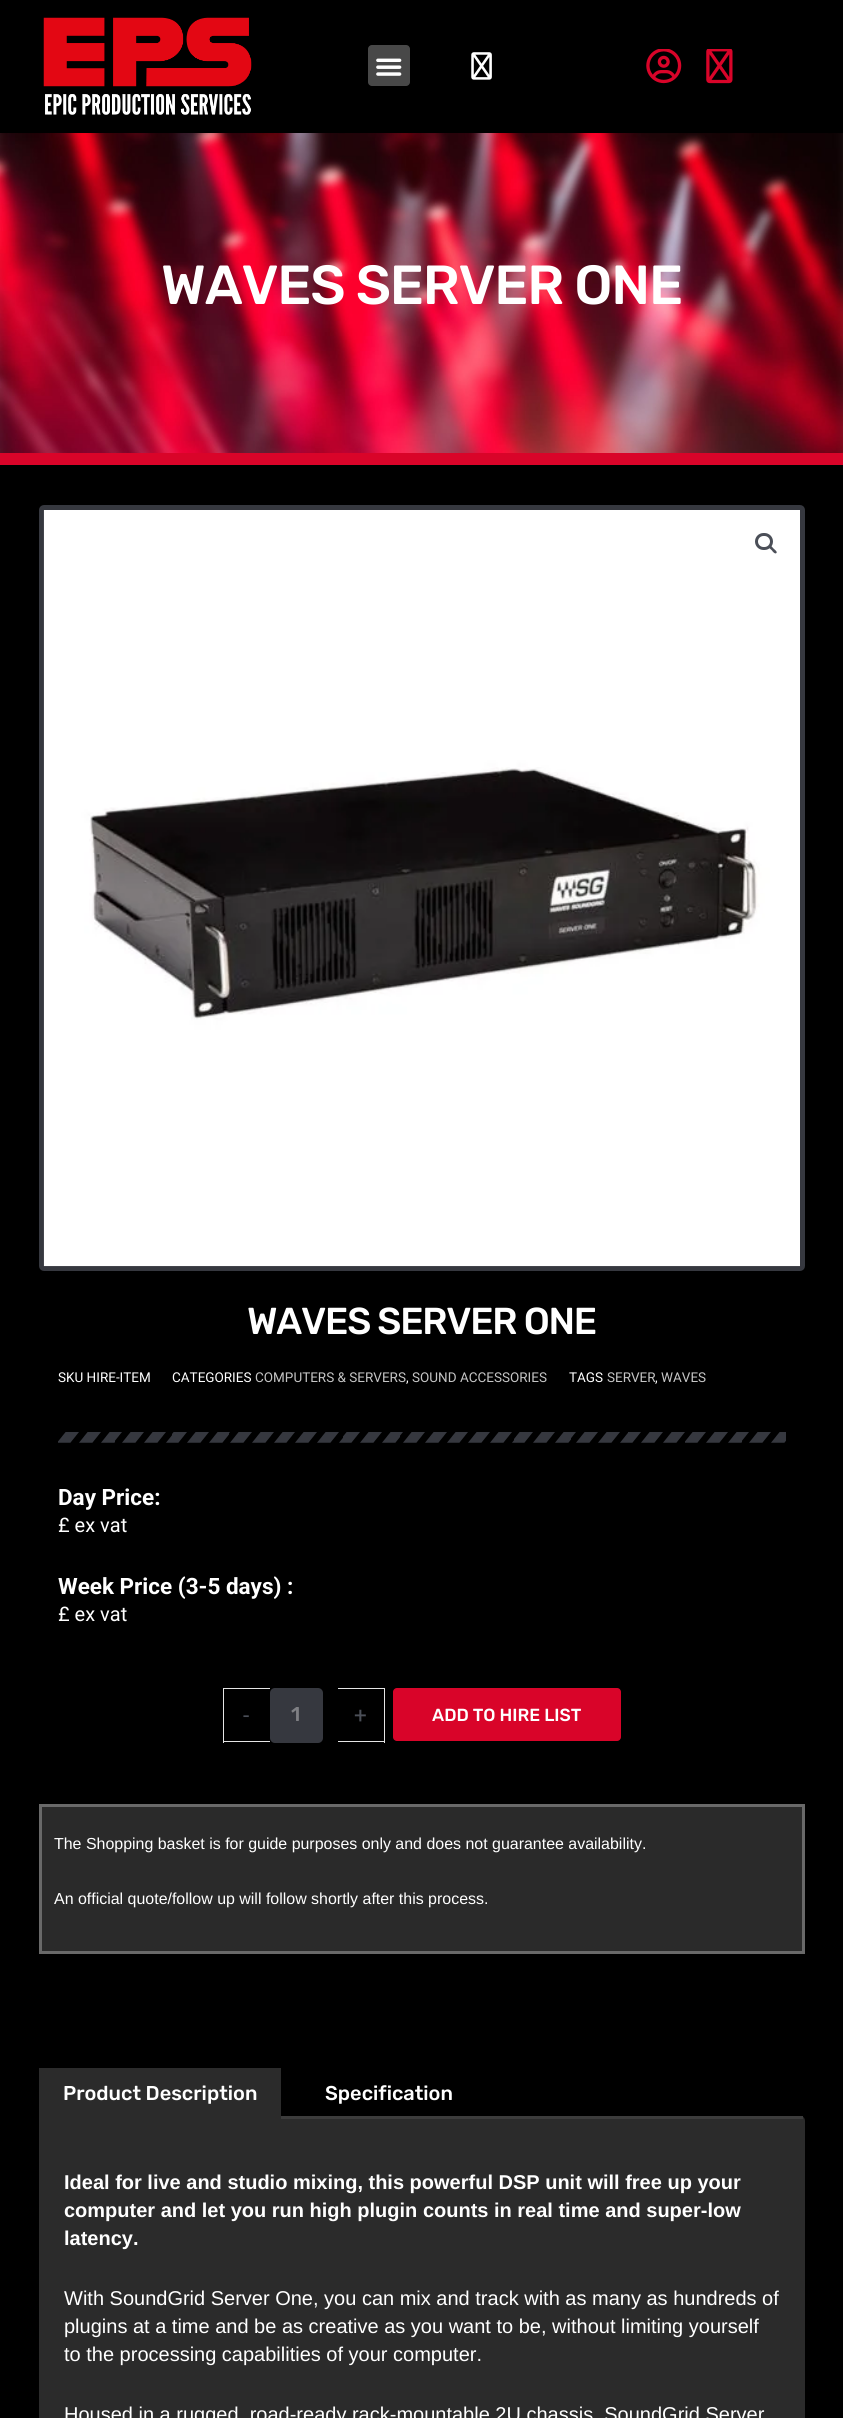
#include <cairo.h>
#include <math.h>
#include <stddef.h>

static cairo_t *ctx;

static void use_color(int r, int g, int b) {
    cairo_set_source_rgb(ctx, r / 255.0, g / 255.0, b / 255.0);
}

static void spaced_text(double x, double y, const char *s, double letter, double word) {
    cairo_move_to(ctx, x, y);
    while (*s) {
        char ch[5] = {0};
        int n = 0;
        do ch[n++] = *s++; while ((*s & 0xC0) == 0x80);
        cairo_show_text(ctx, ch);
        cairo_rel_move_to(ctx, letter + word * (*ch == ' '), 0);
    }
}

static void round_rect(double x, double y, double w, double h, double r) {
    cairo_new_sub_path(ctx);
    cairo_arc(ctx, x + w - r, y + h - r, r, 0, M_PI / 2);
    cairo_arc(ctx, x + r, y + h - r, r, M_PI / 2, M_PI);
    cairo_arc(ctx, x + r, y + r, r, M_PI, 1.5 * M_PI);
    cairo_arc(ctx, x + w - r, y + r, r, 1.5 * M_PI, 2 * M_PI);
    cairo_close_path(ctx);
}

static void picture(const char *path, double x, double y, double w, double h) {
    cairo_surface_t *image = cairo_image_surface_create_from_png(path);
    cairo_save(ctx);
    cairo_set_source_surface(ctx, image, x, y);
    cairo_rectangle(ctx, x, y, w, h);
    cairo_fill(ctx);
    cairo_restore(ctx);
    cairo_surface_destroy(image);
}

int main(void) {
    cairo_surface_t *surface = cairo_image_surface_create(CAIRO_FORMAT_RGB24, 843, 2418);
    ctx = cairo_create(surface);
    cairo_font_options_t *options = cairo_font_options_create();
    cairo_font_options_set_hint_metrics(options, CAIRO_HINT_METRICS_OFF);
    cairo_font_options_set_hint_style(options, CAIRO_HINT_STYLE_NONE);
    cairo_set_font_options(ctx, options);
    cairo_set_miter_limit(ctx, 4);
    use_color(255, 255, 255);
    cairo_paint(ctx);
    use_color(0, 0, 0);
    cairo_rectangle(ctx, 0, 0, 843, 133);
    cairo_fill(ctx);
    picture("img1.png", 43, 17, 209, 98);
    use_color(72, 72, 72);
    round_rect(368, 45, 42, 41, 4);
    cairo_fill(ctx);
    picture("img2.png", 376, 58, 26, 18);
    picture("img3.png", 471, 52, 21, 28);
    picture("img4.png", 646, 49, 36, 35);
    picture("img5.png", 706, 49, 27, 35);
    picture("img6.png", 0, 133, 843, 320);
    use_color(217, 4, 41);
    cairo_rectangle(ctx, 0, 453, 843, 12);
    cairo_fill(ctx);
    cairo_select_font_face(ctx, "Rubik Medium", CAIRO_FONT_SLANT_NORMAL, CAIRO_FONT_WEIGHT_NORMAL);
    cairo_set_font_size(ctx, 55);
    use_color(255, 255, 255);
    spaced_text(161, 304, "WAVES SERVER ONE", -1.25, 0);
    use_color(0, 0, 0);
    cairo_rectangle(ctx, 0, 465, 843, 1953);
    cairo_fill(ctx);
    round_rect(41.5, 507.5, 761, 761, 2.5);
    use_color(54, 56, 63);
    cairo_set_line_width(ctx, 5);
    cairo_stroke(ctx);
    picture("img7.png", 43, 510, 757, 757);
    round_rect(756.5, 534.5, 15, 14, 7);
    use_color(75, 79, 88);
    cairo_set_line_width(ctx, 3);
    cairo_stroke(ctx);
    cairo_new_path(ctx);
    cairo_move_to(ctx, 769.5, 546);
    cairo_curve_to(ctx, 770.5, 544.5, 773, 548, 773.5, 548.5);
    cairo_curve_to(ctx, 774.5, 549.5, 777.5, 551.5, 776.5, 553);
    cairo_curve_to(ctx, 775, 554.5, 772.5, 551.5, 772, 550.5);
    cairo_curve_to(ctx, 771, 549.5, 768, 547.5, 769.5, 546);
    cairo_close_path(ctx);
    cairo_fill(ctx);
    cairo_set_font_size(ctx, 37.5);
    use_color(255, 255, 255);
    spaced_text(247, 1334, "WAVES SERVER ONE", -1.25, 0);
    cairo_select_font_face(ctx, "Roboto", CAIRO_FONT_SLANT_NORMAL, CAIRO_FONT_WEIGHT_NORMAL);
    cairo_set_font_size(ctx, 13.5);
    cairo_move_to(ctx, 58, 1382);
    cairo_show_text(ctx, "SKU HIRE-ITEM");
    cairo_move_to(ctx, 172, 1382);
    cairo_show_text(ctx, "CATEGORIES");
    use_color(197, 197, 197);
    cairo_move_to(ctx, 255, 1382);
    cairo_show_text(ctx, "COMPUTERS & SERVERS");
    use_color(255, 255, 255);
    cairo_move_to(ctx, 406, 1382);
    cairo_show_text(ctx, ",");
    use_color(197, 197, 197);
    cairo_move_to(ctx, 412, 1382);
    cairo_show_text(ctx, "SOUND ACCESSORIES");
    use_color(255, 255, 255);
    cairo_move_to(ctx, 569, 1382);
    cairo_show_text(ctx, "TAGS");
    use_color(197, 197, 197);
    cairo_move_to(ctx, 607, 1382);
    cairo_show_text(ctx, "SERVER");
    use_color(255, 255, 255);
    cairo_move_to(ctx, 655, 1382);
    cairo_show_text(ctx, ",");
    use_color(197, 197, 197);
    cairo_move_to(ctx, 661, 1382);
    cairo_show_text(ctx, "WAVES");
    picture("img8.png", 58, 1432, 728, 11);
    cairo_select_font_face(ctx, "Roboto", CAIRO_FONT_SLANT_NORMAL, CAIRO_FONT_WEIGHT_BOLD);
    cairo_set_font_size(ctx, 22.5);
    use_color(255, 255, 255);
    cairo_move_to(ctx, 58, 1505);
    cairo_show_text(ctx, "Day Price:");
    cairo_select_font_face(ctx, "Roboto", CAIRO_FONT_SLANT_NORMAL, CAIRO_FONT_WEIGHT_NORMAL);
    cairo_set_font_size(ctx, 20);
    cairo_move_to(ctx, 58, 1532);
    cairo_show_text(ctx, "£ ex vat");
    cairo_select_font_face(ctx, "Roboto", CAIRO_FONT_SLANT_NORMAL, CAIRO_FONT_WEIGHT_BOLD);
    cairo_set_font_size(ctx, 22.5);
    cairo_move_to(ctx, 58, 1594);
    cairo_show_text(ctx, "Week Price (3-5 days) :");
    cairo_select_font_face(ctx, "Roboto", CAIRO_FONT_SLANT_NORMAL, CAIRO_FONT_WEIGHT_NORMAL);
    cairo_set_font_size(ctx, 20);
    cairo_move_to(ctx, 58, 1621);
    cairo_show_text(ctx, "£ ex vat");
    use_color(229, 229, 229);
    cairo_rectangle(ctx, 223, 1688, 47, 1);
    cairo_fill(ctx);
    cairo_rectangle(ctx, 223, 1741, 47, 1);
    cairo_fill(ctx);
    cairo_rectangle(ctx, 223, 1688, 1, 55);
    cairo_fill(ctx);
    cairo_set_font_size(ctx, 22.5);
    use_color(75, 79, 88);
    cairo_move_to(ctx, 243, 1723);
    cairo_show_text(ctx, "-");
    use_color(54, 56, 63);
    round_rect(270, 1688, 53, 55, 5);
    cairo_fill(ctx);
    cairo_select_font_face(ctx, "Rubik Medium", CAIRO_FONT_SLANT_NORMAL, CAIRO_FONT_WEIGHT_NORMAL);
    cairo_set_font_size(ctx, 20);
    use_color(127, 128, 132);
    cairo_move_to(ctx, 291, 1721);
    cairo_show_text(ctx, "1");
    use_color(229, 229, 229);
    cairo_rectangle(ctx, 338, 1688, 47, 1);
    cairo_fill(ctx);
    cairo_rectangle(ctx, 384, 1688, 1, 55);
    cairo_fill(ctx);
    cairo_rectangle(ctx, 338, 1741, 47, 1);
    cairo_fill(ctx);
    cairo_select_font_face(ctx, "Roboto", CAIRO_FONT_SLANT_NORMAL, CAIRO_FONT_WEIGHT_NORMAL);
    cairo_set_font_size(ctx, 22.5);
    use_color(75, 79, 88);
    cairo_move_to(ctx, 354, 1723);
    cairo_show_text(ctx, "+");
    use_color(217, 4, 41);
    round_rect(393, 1688, 228, 53, 4);
    cairo_fill(ctx);
    cairo_select_font_face(ctx, "Rubik Medium", CAIRO_FONT_SLANT_NORMAL, CAIRO_FONT_WEIGHT_NORMAL);
    cairo_set_font_size(ctx, 17.5);
    use_color(255, 255, 255);
    cairo_move_to(ctx, 432, 1721);
    cairo_show_text(ctx, "ADD TO HIRE LIST");
    use_color(42, 42, 42);
    cairo_rectangle(ctx, 40.5, 1805.5, 763, 147);
    cairo_fill_preserve(ctx);
    use_color(105, 105, 105);
    cairo_stroke(ctx);
    cairo_select_font_face(ctx, "Liberation Sans", CAIRO_FONT_SLANT_NORMAL, CAIRO_FONT_WEIGHT_NORMAL);
    cairo_set_font_size(ctx, 15.95);
    use_color(255, 255, 255);
    cairo_move_to(ctx, 54, 1849);
    cairo_show_text(ctx, "The Shopping basket is for guide purposes only and does not guarantee availability.");
    cairo_move_to(ctx, 54, 1904);
    cairo_show_text(ctx, "An official quote/follow up will follow shortly after this process.");
    use_color(43, 43, 43);
    cairo_rectangle(ctx, 39, 2068, 242, 48);
    cairo_fill(ctx);
    cairo_select_font_face(ctx, "Rubik Medium", CAIRO_FONT_SLANT_NORMAL, CAIRO_FONT_WEIGHT_NORMAL);
    cairo_set_font_size(ctx, 20);
    use_color(255, 255, 255);
    cairo_move_to(ctx, 63, 2100);
    cairo_show_text(ctx, "Product Description");
    cairo_move_to(ctx, 325, 2100);
    cairo_show_text(ctx, "Specification");
    use_color(43, 43, 43);
    cairo_new_path(ctx);
    cairo_move_to(ctx, 39, 2116);
    cairo_line_to(ctx, 800, 2116);
    cairo_curve_to(ctx, 803, 2116, 805, 2118, 805, 2121);
    cairo_line_to(ctx, 805, 2418);
    cairo_curve_to(ctx, 805, 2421, 803, 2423, 800, 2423);
    cairo_line_to(ctx, 44, 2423);
    cairo_curve_to(ctx, 41, 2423, 39, 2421, 39, 2418);
    cairo_close_path(ctx);
    cairo_fill(ctx);
    use_color(60, 60, 60);
    cairo_rectangle(ctx, 281, 2116, 522, 3);
    cairo_fill(ctx);
    cairo_select_font_face(ctx, "Liberation Sans", CAIRO_FONT_SLANT_NORMAL, CAIRO_FONT_WEIGHT_BOLD);
    use_color(255, 255, 255);
    cairo_move_to(ctx, 64, 2189);
    cairo_show_text(ctx, "Ideal for live and studio mixing, this powerful DSP unit will free up your");
    cairo_move_to(ctx, 64, 2217);
    cairo_show_text(ctx, "computer and let you run high plugin counts in real time and super-low");
    cairo_move_to(ctx, 64, 2245);
    cairo_show_text(ctx, "latency.");
    cairo_select_font_face(ctx, "Liberation Sans", CAIRO_FONT_SLANT_NORMAL, CAIRO_FONT_WEIGHT_NORMAL);
    cairo_move_to(ctx, 64, 2305);
    cairo_show_text(ctx, "With SoundGrid Server One, you can mix and track with as many as hundreds of");
    cairo_move_to(ctx, 64, 2333);
    cairo_show_text(ctx, "plugins at a time and be as creative as you want to be, without limiting yourself");
    cairo_move_to(ctx, 64, 2361);
    cairo_show_text(ctx, "to the processing capabilities of your computer.");
    cairo_move_to(ctx, 64, 2421);
    cairo_show_text(ctx, "Housed in a rugged, road-ready rack-mountable 2U chassis, SoundGrid Server");
    cairo_surface_write_to_png(surface, "result.png");
    cairo_font_options_destroy(options);
    cairo_destroy(ctx);
    cairo_surface_destroy(surface);
    return 0;
}
